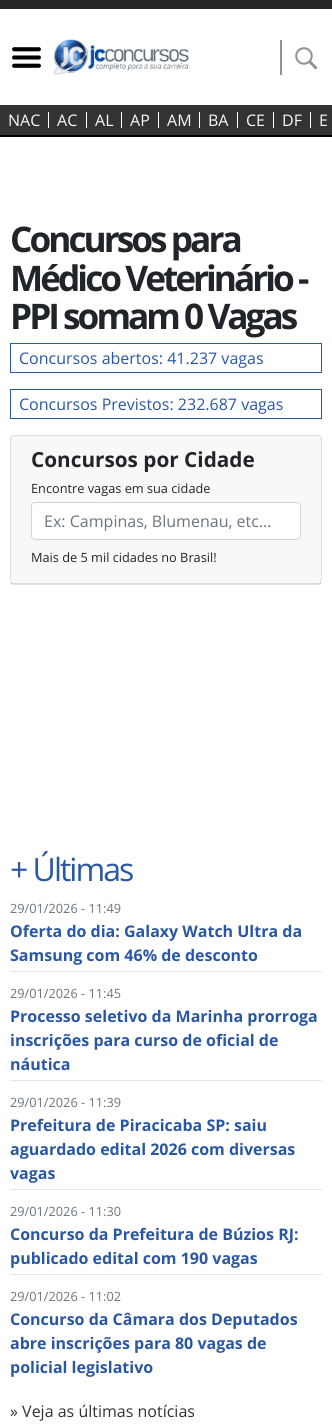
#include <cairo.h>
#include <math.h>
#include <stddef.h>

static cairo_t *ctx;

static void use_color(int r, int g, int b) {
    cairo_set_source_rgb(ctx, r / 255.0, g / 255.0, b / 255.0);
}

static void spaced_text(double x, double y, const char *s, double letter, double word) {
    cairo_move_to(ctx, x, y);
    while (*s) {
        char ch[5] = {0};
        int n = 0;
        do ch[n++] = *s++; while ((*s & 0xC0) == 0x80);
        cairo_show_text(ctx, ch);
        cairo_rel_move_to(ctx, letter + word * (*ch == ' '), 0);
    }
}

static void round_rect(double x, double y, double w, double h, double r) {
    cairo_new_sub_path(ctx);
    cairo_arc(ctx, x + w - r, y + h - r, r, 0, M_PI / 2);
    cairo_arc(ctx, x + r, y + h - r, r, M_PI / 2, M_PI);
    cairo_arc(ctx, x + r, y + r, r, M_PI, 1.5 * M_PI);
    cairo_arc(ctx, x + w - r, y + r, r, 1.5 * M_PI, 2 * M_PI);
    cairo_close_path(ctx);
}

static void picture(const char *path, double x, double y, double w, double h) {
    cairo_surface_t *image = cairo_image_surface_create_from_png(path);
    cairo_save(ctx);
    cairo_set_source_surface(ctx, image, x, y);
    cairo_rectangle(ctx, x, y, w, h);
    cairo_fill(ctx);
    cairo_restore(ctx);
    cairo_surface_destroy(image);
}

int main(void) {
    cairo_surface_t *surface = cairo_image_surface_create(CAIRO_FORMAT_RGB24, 332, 1425);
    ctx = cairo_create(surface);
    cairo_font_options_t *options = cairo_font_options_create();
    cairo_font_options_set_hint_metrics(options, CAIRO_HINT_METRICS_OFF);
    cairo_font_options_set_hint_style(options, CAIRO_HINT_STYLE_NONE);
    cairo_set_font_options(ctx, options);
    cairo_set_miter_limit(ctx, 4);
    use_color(255, 255, 255);
    cairo_paint(ctx);
    use_color(38, 38, 38);
    cairo_rectangle(ctx, 0, 0, 332, 9);
    cairo_fill(ctx);
    picture("img1.png", 12, 47, 29, 21);
    picture("img2.png", 53, 39, 136, 36);
    use_color(146, 146, 146);
    cairo_rectangle(ctx, 280, 40, 2, 35);
    cairo_fill(ctx);
    picture("img3.png", 295, 47, 23, 23);
    use_color(51, 51, 51);
    cairo_rectangle(ctx, 0, 105, 332, 30);
    cairo_fill(ctx);
    use_color(0, 0, 0);
    cairo_rectangle(ctx, 0, 135, 332, 2);
    cairo_fill(ctx);
    use_color(255, 255, 255);
    cairo_rectangle(ctx, 48, 112, 1, 16);
    cairo_fill(ctx);
    cairo_select_font_face(ctx, "Open Sans", CAIRO_FONT_SLANT_NORMAL, CAIRO_FONT_WEIGHT_NORMAL);
    cairo_set_font_size(ctx, 16);
    use_color(248, 249, 250);
    cairo_move_to(ctx, 8, 126);
    cairo_show_text(ctx, "NAC");
    use_color(255, 255, 255);
    cairo_rectangle(ctx, 86, 112, 1, 16);
    cairo_fill(ctx);
    use_color(248, 249, 250);
    cairo_move_to(ctx, 57, 126);
    cairo_show_text(ctx, "AC");
    use_color(255, 255, 255);
    cairo_rectangle(ctx, 121, 112, 1, 16);
    cairo_fill(ctx);
    use_color(248, 249, 250);
    cairo_move_to(ctx, 95, 126);
    cairo_show_text(ctx, "AL");
    use_color(255, 255, 255);
    cairo_rectangle(ctx, 158, 112, 1, 16);
    cairo_fill(ctx);
    use_color(248, 249, 250);
    cairo_move_to(ctx, 130, 126);
    cairo_show_text(ctx, "AP");
    use_color(255, 255, 255);
    cairo_rectangle(ctx, 199, 112, 1, 16);
    cairo_fill(ctx);
    use_color(248, 249, 250);
    cairo_move_to(ctx, 167, 126);
    cairo_show_text(ctx, "AM");
    use_color(255, 255, 255);
    cairo_rectangle(ctx, 237, 112, 1, 16);
    cairo_fill(ctx);
    use_color(248, 249, 250);
    cairo_move_to(ctx, 208, 126);
    cairo_show_text(ctx, "BA");
    use_color(255, 255, 255);
    cairo_rectangle(ctx, 273, 112, 1, 16);
    cairo_fill(ctx);
    use_color(248, 249, 250);
    cairo_move_to(ctx, 246, 126);
    cairo_show_text(ctx, "CE");
    use_color(255, 255, 255);
    cairo_rectangle(ctx, 310, 112, 1, 16);
    cairo_fill(ctx);
    use_color(248, 249, 250);
    cairo_move_to(ctx, 282, 126);
    cairo_show_text(ctx, "DF");
    cairo_move_to(ctx, 319, 126);
    cairo_show_text(ctx, "E");
    cairo_select_font_face(ctx, "Open Sans", CAIRO_FONT_SLANT_NORMAL, CAIRO_FONT_WEIGHT_BOLD);
    cairo_set_font_size(ctx, 35.25);
    use_color(33, 37, 41);
    spaced_text(10, 252, "Concursos para", -3, 0);
    spaced_text(10, 291, "Médico Veterinário -", -3, 0);
    spaced_text(10, 329, "PPI somam 0 Vagas", -3, 0);
    cairo_rectangle(ctx, 10.5, 343.5, 311, 29);
    use_color(41, 87, 164);
    cairo_set_line_width(ctx, 1);
    cairo_stroke(ctx);
    cairo_select_font_face(ctx, "Open Sans", CAIRO_FONT_SLANT_NORMAL, CAIRO_FONT_WEIGHT_NORMAL);
    cairo_set_font_size(ctx, 16);
    cairo_move_to(ctx, 19, 364);
    cairo_show_text(ctx, "Concursos abertos: 41.237 vagas");
    cairo_rectangle(ctx, 10.5, 389.5, 311, 29);
    cairo_stroke(ctx);
    cairo_move_to(ctx, 19, 410);
    cairo_show_text(ctx, "Concursos Previstos: 232.687 vagas");
    round_rect(10.5, 435.5, 311, 149, 3.5);
    use_color(223, 223, 223);
    cairo_stroke(ctx);
    cairo_set_source_rgba(ctx, 0, 0, 0, 0.03);
    cairo_rectangle(ctx, 11, 436, 310, 148);
    cairo_fill(ctx);
    cairo_set_source_rgba(ctx, 0, 0, 0, 0.12);
    cairo_rectangle(ctx, 11, 583, 310, 1);
    cairo_fill(ctx);
    cairo_select_font_face(ctx, "Open Sans", CAIRO_FONT_SLANT_NORMAL, CAIRO_FONT_WEIGHT_BOLD);
    cairo_set_font_size(ctx, 20.75);
    use_color(33, 37, 41);
    cairo_move_to(ctx, 31, 467);
    cairo_show_text(ctx, "Concursos por Cidade");
    cairo_select_font_face(ctx, "Open Sans", CAIRO_FONT_SLANT_NORMAL, CAIRO_FONT_WEIGHT_NORMAL);
    cairo_set_font_size(ctx, 12.75);
    cairo_move_to(ctx, 31, 493);
    cairo_show_text(ctx, "Encontre vagas em sua cidade");
    use_color(255, 255, 255);
    round_rect(31.5, 502.5, 269, 37, 3.5);
    cairo_fill_preserve(ctx);
    use_color(206, 212, 218);
    cairo_stroke(ctx);
    cairo_set_font_size(ctx, 16);
    use_color(108, 117, 125);
    cairo_move_to(ctx, 44, 527);
    cairo_show_text(ctx, "Ex: Campinas, Blumenau, etc...");
    cairo_set_font_size(ctx, 12.75);
    use_color(33, 37, 41);
    cairo_move_to(ctx, 31, 562);
    cairo_show_text(ctx, "Mais de 5 mil cidades no Brasil!");
    cairo_set_font_size(ctx, 32);
    use_color(41, 87, 164);
    spaced_text(10, 881, "+ Últimas", -2, 0);
    cairo_set_font_size(ctx, 12.75);
    use_color(108, 117, 125);
    cairo_move_to(ctx, 10, 913);
    cairo_show_text(ctx, "29/01/2026 - 11:49");
    cairo_select_font_face(ctx, "Open Sans", CAIRO_FONT_SLANT_NORMAL, CAIRO_FONT_WEIGHT_BOLD);
    cairo_set_font_size(ctx, 16);
    use_color(41, 87, 164);
    cairo_move_to(ctx, 10, 937);
    cairo_show_text(ctx, "Oferta do dia: Galaxy Watch Ultra da");
    cairo_move_to(ctx, 10, 961);
    cairo_show_text(ctx, "Samsung com 46% de desconto");
    use_color(230, 230, 230);
    cairo_rectangle(ctx, 10, 971, 312, 1);
    cairo_fill(ctx);
    cairo_select_font_face(ctx, "Open Sans", CAIRO_FONT_SLANT_NORMAL, CAIRO_FONT_WEIGHT_NORMAL);
    cairo_set_font_size(ctx, 12.75);
    use_color(108, 117, 125);
    cairo_move_to(ctx, 10, 998);
    cairo_show_text(ctx, "29/01/2026 - 11:45");
    cairo_select_font_face(ctx, "Open Sans", CAIRO_FONT_SLANT_NORMAL, CAIRO_FONT_WEIGHT_BOLD);
    cairo_set_font_size(ctx, 16);
    use_color(41, 87, 164);
    cairo_move_to(ctx, 10, 1022);
    cairo_show_text(ctx, "Processo seletivo da Marinha prorroga");
    cairo_move_to(ctx, 10, 1046);
    cairo_show_text(ctx, "inscrições para curso de oficial de");
    cairo_move_to(ctx, 10, 1070);
    cairo_show_text(ctx, "náutica");
    use_color(230, 230, 230);
    cairo_rectangle(ctx, 10, 1080, 312, 1);
    cairo_fill(ctx);
    cairo_select_font_face(ctx, "Open Sans", CAIRO_FONT_SLANT_NORMAL, CAIRO_FONT_WEIGHT_NORMAL);
    cairo_set_font_size(ctx, 12.75);
    use_color(108, 117, 125);
    cairo_move_to(ctx, 10, 1107);
    cairo_show_text(ctx, "29/01/2026 - 11:39");
    cairo_select_font_face(ctx, "Open Sans", CAIRO_FONT_SLANT_NORMAL, CAIRO_FONT_WEIGHT_BOLD);
    cairo_set_font_size(ctx, 16);
    use_color(41, 87, 164);
    cairo_move_to(ctx, 10, 1131);
    cairo_show_text(ctx, "Prefeitura de Piracicaba SP: saiu");
    cairo_move_to(ctx, 10, 1155);
    cairo_show_text(ctx, "aguardado edital 2026 com diversas");
    cairo_move_to(ctx, 10, 1179);
    cairo_show_text(ctx, "vagas");
    use_color(230, 230, 230);
    cairo_rectangle(ctx, 10, 1189, 312, 1);
    cairo_fill(ctx);
    cairo_select_font_face(ctx, "Open Sans", CAIRO_FONT_SLANT_NORMAL, CAIRO_FONT_WEIGHT_NORMAL);
    cairo_set_font_size(ctx, 12.75);
    use_color(108, 117, 125);
    cairo_move_to(ctx, 10, 1216);
    cairo_show_text(ctx, "29/01/2026 - 11:30");
    cairo_select_font_face(ctx, "Open Sans", CAIRO_FONT_SLANT_NORMAL, CAIRO_FONT_WEIGHT_BOLD);
    cairo_set_font_size(ctx, 16);
    use_color(41, 87, 164);
    cairo_move_to(ctx, 10, 1240);
    cairo_show_text(ctx, "Concurso da Prefeitura de Búzios RJ:");
    cairo_move_to(ctx, 10, 1264);
    cairo_show_text(ctx, "publicado edital com 190 vagas");
    use_color(230, 230, 230);
    cairo_rectangle(ctx, 10, 1274, 312, 1);
    cairo_fill(ctx);
    cairo_select_font_face(ctx, "Open Sans", CAIRO_FONT_SLANT_NORMAL, CAIRO_FONT_WEIGHT_NORMAL);
    cairo_set_font_size(ctx, 12.75);
    use_color(108, 117, 125);
    cairo_move_to(ctx, 10, 1301);
    cairo_show_text(ctx, "29/01/2026 - 11:02");
    cairo_select_font_face(ctx, "Open Sans", CAIRO_FONT_SLANT_NORMAL, CAIRO_FONT_WEIGHT_BOLD);
    cairo_set_font_size(ctx, 16);
    use_color(41, 87, 164);
    cairo_move_to(ctx, 10, 1325);
    cairo_show_text(ctx, "Concurso da Câmara dos Deputados");
    cairo_move_to(ctx, 10, 1349);
    cairo_show_text(ctx, "abre inscrições para 80 vagas de");
    cairo_move_to(ctx, 10, 1373);
    cairo_show_text(ctx, "policial legislativo");
    cairo_select_font_face(ctx, "Open Sans", CAIRO_FONT_SLANT_NORMAL, CAIRO_FONT_WEIGHT_NORMAL);
    use_color(51, 51, 51);
    cairo_move_to(ctx, 10, 1417);
    cairo_show_text(ctx, "» Veja as últimas notícias");
    cairo_surface_write_to_png(surface, "result.png");
    cairo_font_options_destroy(options);
    cairo_destroy(ctx);
    cairo_surface_destroy(surface);
    return 0;
}
